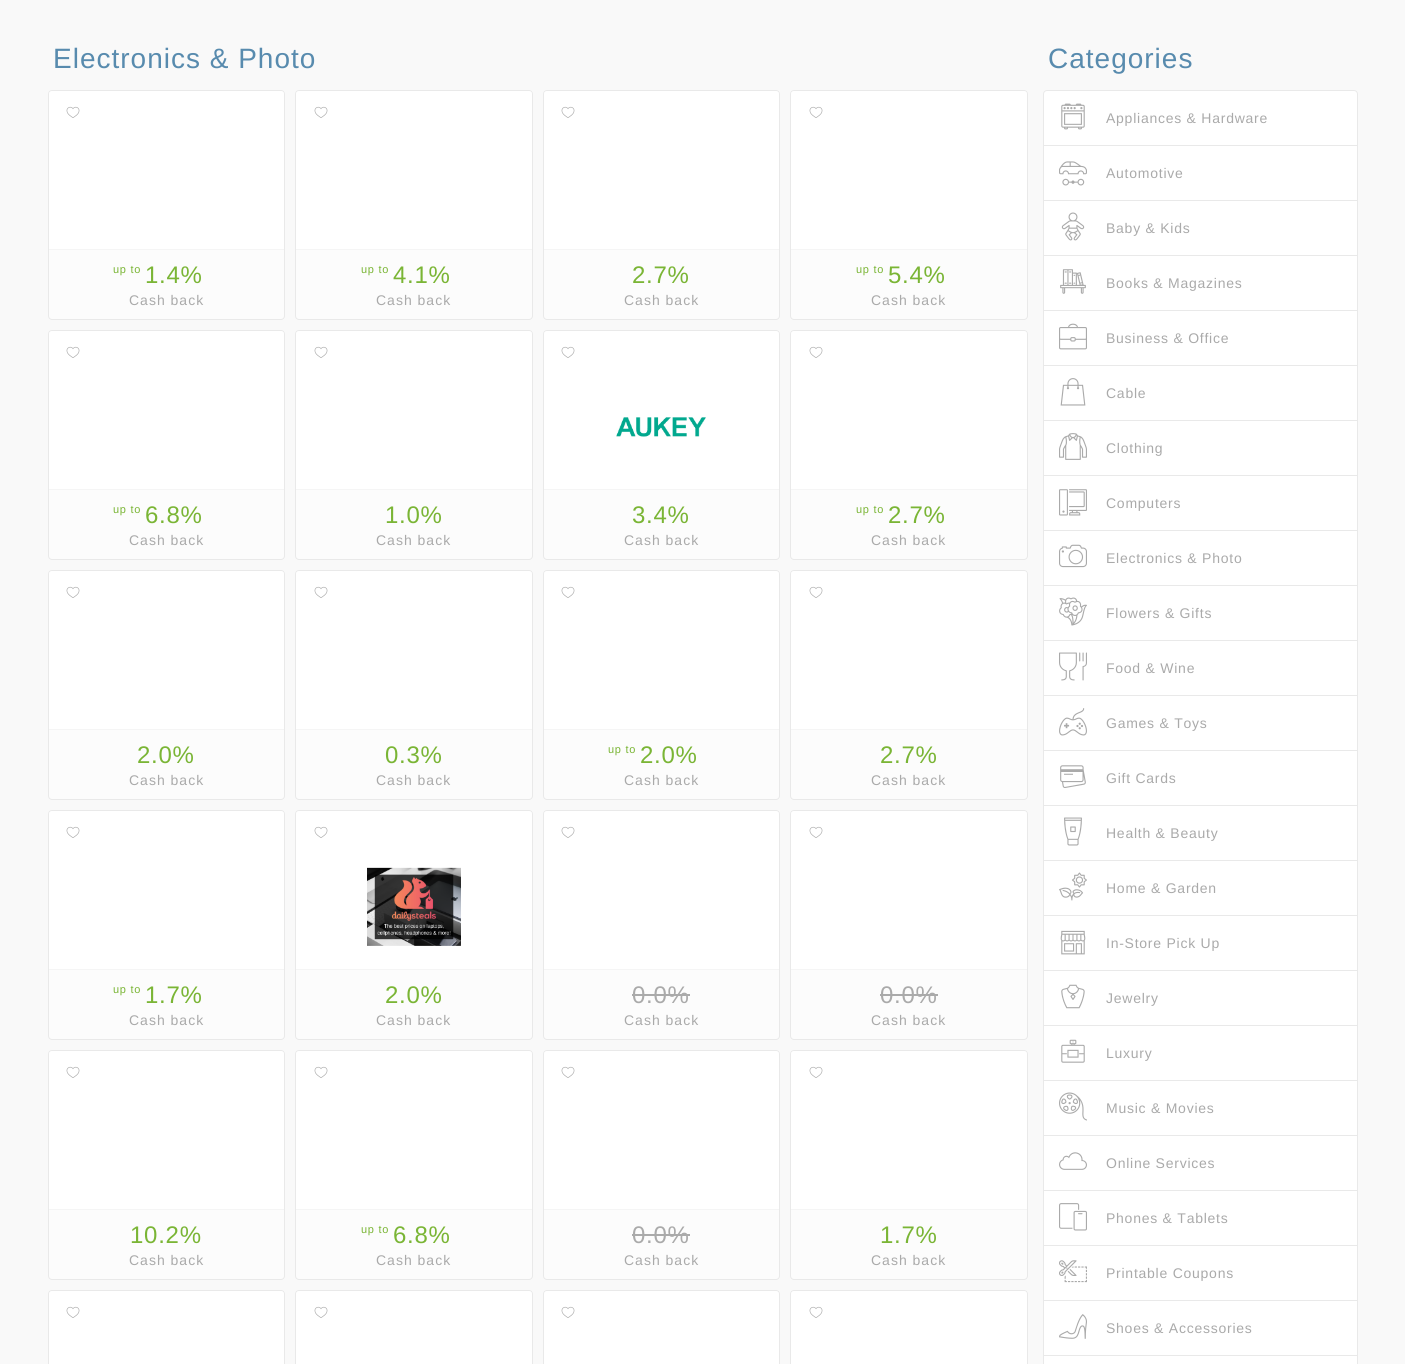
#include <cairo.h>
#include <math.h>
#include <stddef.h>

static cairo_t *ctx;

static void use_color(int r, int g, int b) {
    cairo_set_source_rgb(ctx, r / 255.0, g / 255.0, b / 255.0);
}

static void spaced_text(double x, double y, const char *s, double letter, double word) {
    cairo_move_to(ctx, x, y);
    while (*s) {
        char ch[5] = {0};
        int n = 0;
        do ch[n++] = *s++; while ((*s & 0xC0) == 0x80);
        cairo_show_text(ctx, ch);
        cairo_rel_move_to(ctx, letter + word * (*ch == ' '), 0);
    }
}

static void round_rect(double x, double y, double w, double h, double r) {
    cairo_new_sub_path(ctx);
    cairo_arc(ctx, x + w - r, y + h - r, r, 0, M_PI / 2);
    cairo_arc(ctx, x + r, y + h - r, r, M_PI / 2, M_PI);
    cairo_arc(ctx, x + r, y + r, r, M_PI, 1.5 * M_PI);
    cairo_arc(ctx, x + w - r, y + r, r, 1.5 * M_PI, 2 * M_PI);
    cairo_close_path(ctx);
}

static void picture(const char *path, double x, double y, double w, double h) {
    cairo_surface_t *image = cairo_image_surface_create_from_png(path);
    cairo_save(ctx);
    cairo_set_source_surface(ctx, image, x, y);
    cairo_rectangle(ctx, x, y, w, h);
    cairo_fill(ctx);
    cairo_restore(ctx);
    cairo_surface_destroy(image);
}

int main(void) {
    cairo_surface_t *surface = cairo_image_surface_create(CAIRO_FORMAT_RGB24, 1405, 1364);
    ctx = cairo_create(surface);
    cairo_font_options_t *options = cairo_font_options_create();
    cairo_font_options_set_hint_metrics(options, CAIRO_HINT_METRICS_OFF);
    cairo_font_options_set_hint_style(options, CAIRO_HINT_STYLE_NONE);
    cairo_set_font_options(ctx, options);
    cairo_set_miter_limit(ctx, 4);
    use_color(249, 249, 249);
    cairo_paint(ctx);
    cairo_select_font_face(ctx, "Liberation Sans", CAIRO_FONT_SLANT_NORMAL, CAIRO_FONT_WEIGHT_NORMAL);
    cairo_set_font_size(ctx, 28);
    use_color(88, 139, 174);
    spaced_text(53, 68, "Electronics & Photo", 1, 0);
    use_color(252, 252, 252);
    round_rect(48.5, 90.5, 236, 229, 3.5);
    cairo_fill_preserve(ctx);
    use_color(233, 233, 233);
    cairo_set_line_width(ctx, 1);
    cairo_stroke(ctx);
    use_color(255, 255, 255);
    cairo_new_path(ctx);
    cairo_move_to(ctx, 52, 91);
    cairo_line_to(ctx, 281, 91);
    cairo_curve_to(ctx, 282.5, 91, 284, 92.5, 284, 94);
    cairo_line_to(ctx, 284, 125);
    cairo_line_to(ctx, 49, 125);
    cairo_line_to(ctx, 49, 94);
    cairo_curve_to(ctx, 49, 92.5, 50.5, 91, 52, 91);
    cairo_close_path(ctx);
    cairo_fill(ctx);
    picture("img1.png", 66, 106, 14, 12);
    cairo_rectangle(ctx, 49, 125, 235, 124);
    cairo_fill(ctx);
    use_color(245, 245, 245);
    cairo_rectangle(ctx, 49, 249, 235, 1);
    cairo_fill(ctx);
    cairo_set_font_size(ctx, 11);
    use_color(122, 181, 53);
    spaced_text(113, 273, "up to", 0.75, 0);
    cairo_set_font_size(ctx, 24);
    spaced_text(145, 283, "1.4%", 0.75, 0);
    cairo_set_font_size(ctx, 14);
    use_color(170, 170, 170);
    spaced_text(129, 305, "Cash back", 1, 0);
    use_color(252, 252, 252);
    round_rect(295.5, 90.5, 237, 229, 3.5);
    cairo_fill_preserve(ctx);
    use_color(233, 233, 233);
    cairo_stroke(ctx);
    use_color(255, 255, 255);
    cairo_new_path(ctx);
    cairo_move_to(ctx, 299, 91);
    cairo_line_to(ctx, 529, 91);
    cairo_curve_to(ctx, 530.5, 91, 532, 92.5, 532, 94);
    cairo_line_to(ctx, 532, 125);
    cairo_line_to(ctx, 296, 125);
    cairo_line_to(ctx, 296, 94);
    cairo_curve_to(ctx, 296, 92.5, 297.5, 91, 299, 91);
    cairo_close_path(ctx);
    cairo_fill(ctx);
    picture("img1.png", 314, 106, 14, 12);
    cairo_rectangle(ctx, 296, 125, 236, 124);
    cairo_fill(ctx);
    use_color(245, 245, 245);
    cairo_rectangle(ctx, 296, 249, 236, 1);
    cairo_fill(ctx);
    cairo_set_font_size(ctx, 11);
    use_color(122, 181, 53);
    spaced_text(361, 273, "up to", 0.75, 0);
    cairo_set_font_size(ctx, 24);
    spaced_text(393, 283, "4.1%", 0.75, 0);
    cairo_set_font_size(ctx, 14);
    use_color(170, 170, 170);
    spaced_text(376, 305, "Cash back", 1, 0);
    use_color(252, 252, 252);
    round_rect(543.5, 90.5, 236, 229, 3.5);
    cairo_fill_preserve(ctx);
    use_color(233, 233, 233);
    cairo_stroke(ctx);
    use_color(255, 255, 255);
    cairo_new_path(ctx);
    cairo_move_to(ctx, 547, 91);
    cairo_line_to(ctx, 776, 91);
    cairo_curve_to(ctx, 777.5, 91, 779, 92.5, 779, 94);
    cairo_line_to(ctx, 779, 125);
    cairo_line_to(ctx, 544, 125);
    cairo_line_to(ctx, 544, 94);
    cairo_curve_to(ctx, 544, 92.5, 545.5, 91, 547, 91);
    cairo_close_path(ctx);
    cairo_fill(ctx);
    picture("img1.png", 561, 106, 14, 12);
    cairo_rectangle(ctx, 544, 125, 235, 124);
    cairo_fill(ctx);
    use_color(245, 245, 245);
    cairo_rectangle(ctx, 544, 249, 235, 1);
    cairo_fill(ctx);
    cairo_set_font_size(ctx, 24);
    use_color(122, 181, 53);
    spaced_text(632, 283, "2.7%", 0.75, 0);
    cairo_set_font_size(ctx, 14);
    use_color(170, 170, 170);
    spaced_text(624, 305, "Cash back", 1, 0);
    use_color(252, 252, 252);
    round_rect(790.5, 90.5, 237, 229, 3.5);
    cairo_fill_preserve(ctx);
    use_color(233, 233, 233);
    cairo_stroke(ctx);
    use_color(255, 255, 255);
    cairo_new_path(ctx);
    cairo_move_to(ctx, 794, 91);
    cairo_line_to(ctx, 1024, 91);
    cairo_curve_to(ctx, 1025.5, 91, 1027, 92.5, 1027, 94);
    cairo_line_to(ctx, 1027, 125);
    cairo_line_to(ctx, 791, 125);
    cairo_line_to(ctx, 791, 94);
    cairo_curve_to(ctx, 791, 92.5, 792.5, 91, 794, 91);
    cairo_close_path(ctx);
    cairo_fill(ctx);
    picture("img1.png", 809, 106, 14, 12);
    cairo_rectangle(ctx, 791, 125, 236, 124);
    cairo_fill(ctx);
    use_color(245, 245, 245);
    cairo_rectangle(ctx, 791, 249, 236, 1);
    cairo_fill(ctx);
    cairo_set_font_size(ctx, 11);
    use_color(122, 181, 53);
    spaced_text(856, 273, "up to", 0.75, 0);
    cairo_set_font_size(ctx, 24);
    spaced_text(888, 283, "5.4%", 0.75, 0);
    cairo_set_font_size(ctx, 14);
    use_color(170, 170, 170);
    spaced_text(871, 305, "Cash back", 1, 0);
    use_color(252, 252, 252);
    round_rect(48.5, 330.5, 236, 229, 3.5);
    cairo_fill_preserve(ctx);
    use_color(233, 233, 233);
    cairo_stroke(ctx);
    use_color(255, 255, 255);
    cairo_new_path(ctx);
    cairo_move_to(ctx, 52, 331);
    cairo_line_to(ctx, 281, 331);
    cairo_curve_to(ctx, 282.5, 331, 284, 332.5, 284, 334);
    cairo_line_to(ctx, 284, 365);
    cairo_line_to(ctx, 49, 365);
    cairo_line_to(ctx, 49, 334);
    cairo_curve_to(ctx, 49, 332.5, 50.5, 331, 52, 331);
    cairo_close_path(ctx);
    cairo_fill(ctx);
    picture("img1.png", 66, 346, 14, 12);
    cairo_rectangle(ctx, 49, 365, 235, 124);
    cairo_fill(ctx);
    use_color(245, 245, 245);
    cairo_rectangle(ctx, 49, 489, 235, 1);
    cairo_fill(ctx);
    cairo_set_font_size(ctx, 11);
    use_color(122, 181, 53);
    spaced_text(113, 513, "up to", 0.75, 0);
    cairo_set_font_size(ctx, 24);
    spaced_text(145, 523, "6.8%", 0.75, 0);
    cairo_set_font_size(ctx, 14);
    use_color(170, 170, 170);
    spaced_text(129, 545, "Cash back", 1, 0);
    use_color(252, 252, 252);
    round_rect(295.5, 330.5, 237, 229, 3.5);
    cairo_fill_preserve(ctx);
    use_color(233, 233, 233);
    cairo_stroke(ctx);
    use_color(255, 255, 255);
    cairo_new_path(ctx);
    cairo_move_to(ctx, 299, 331);
    cairo_line_to(ctx, 529, 331);
    cairo_curve_to(ctx, 530.5, 331, 532, 332.5, 532, 334);
    cairo_line_to(ctx, 532, 365);
    cairo_line_to(ctx, 296, 365);
    cairo_line_to(ctx, 296, 334);
    cairo_curve_to(ctx, 296, 332.5, 297.5, 331, 299, 331);
    cairo_close_path(ctx);
    cairo_fill(ctx);
    picture("img1.png", 314, 346, 14, 12);
    cairo_rectangle(ctx, 296, 365, 236, 124);
    cairo_fill(ctx);
    use_color(245, 245, 245);
    cairo_rectangle(ctx, 296, 489, 236, 1);
    cairo_fill(ctx);
    cairo_set_font_size(ctx, 24);
    use_color(122, 181, 53);
    spaced_text(385, 523, "1.0%", 0.75, 0);
    cairo_set_font_size(ctx, 14);
    use_color(170, 170, 170);
    spaced_text(376, 545, "Cash back", 1, 0);
    use_color(252, 252, 252);
    round_rect(543.5, 330.5, 236, 229, 3.5);
    cairo_fill_preserve(ctx);
    use_color(233, 233, 233);
    cairo_stroke(ctx);
    use_color(255, 255, 255);
    cairo_new_path(ctx);
    cairo_move_to(ctx, 547, 331);
    cairo_line_to(ctx, 776, 331);
    cairo_curve_to(ctx, 777.5, 331, 779, 332.5, 779, 334);
    cairo_line_to(ctx, 779, 365);
    cairo_line_to(ctx, 544, 365);
    cairo_line_to(ctx, 544, 334);
    cairo_curve_to(ctx, 544, 332.5, 545.5, 331, 547, 331);
    cairo_close_path(ctx);
    cairo_fill(ctx);
    picture("img1.png", 561, 346, 14, 12);
    cairo_rectangle(ctx, 544, 365, 235, 124);
    cairo_fill(ctx);
    use_color(245, 245, 245);
    cairo_rectangle(ctx, 544, 489, 235, 1);
    cairo_fill(ctx);
    picture("img2.png", 616, 417, 90, 20);
    cairo_set_font_size(ctx, 24);
    use_color(122, 181, 53);
    spaced_text(632, 523, "3.4%", 0.75, 0);
    cairo_set_font_size(ctx, 14);
    use_color(170, 170, 170);
    spaced_text(624, 545, "Cash back", 1, 0);
    use_color(252, 252, 252);
    round_rect(790.5, 330.5, 237, 229, 3.5);
    cairo_fill_preserve(ctx);
    use_color(233, 233, 233);
    cairo_stroke(ctx);
    use_color(255, 255, 255);
    cairo_new_path(ctx);
    cairo_move_to(ctx, 794, 331);
    cairo_line_to(ctx, 1024, 331);
    cairo_curve_to(ctx, 1025.5, 331, 1027, 332.5, 1027, 334);
    cairo_line_to(ctx, 1027, 365);
    cairo_line_to(ctx, 791, 365);
    cairo_line_to(ctx, 791, 334);
    cairo_curve_to(ctx, 791, 332.5, 792.5, 331, 794, 331);
    cairo_close_path(ctx);
    cairo_fill(ctx);
    picture("img1.png", 809, 346, 14, 12);
    cairo_rectangle(ctx, 791, 365, 236, 124);
    cairo_fill(ctx);
    use_color(245, 245, 245);
    cairo_rectangle(ctx, 791, 489, 236, 1);
    cairo_fill(ctx);
    cairo_set_font_size(ctx, 11);
    use_color(122, 181, 53);
    spaced_text(856, 513, "up to", 0.75, 0);
    cairo_set_font_size(ctx, 24);
    spaced_text(888, 523, "2.7%", 0.75, 0);
    cairo_set_font_size(ctx, 14);
    use_color(170, 170, 170);
    spaced_text(871, 545, "Cash back", 1, 0);
    use_color(252, 252, 252);
    round_rect(48.5, 570.5, 236, 229, 3.5);
    cairo_fill_preserve(ctx);
    use_color(233, 233, 233);
    cairo_stroke(ctx);
    use_color(255, 255, 255);
    cairo_new_path(ctx);
    cairo_move_to(ctx, 52, 571);
    cairo_line_to(ctx, 281, 571);
    cairo_curve_to(ctx, 282.5, 571, 284, 572.5, 284, 574);
    cairo_line_to(ctx, 284, 605);
    cairo_line_to(ctx, 49, 605);
    cairo_line_to(ctx, 49, 574);
    cairo_curve_to(ctx, 49, 572.5, 50.5, 571, 52, 571);
    cairo_close_path(ctx);
    cairo_fill(ctx);
    picture("img1.png", 66, 586, 14, 12);
    cairo_rectangle(ctx, 49, 605, 235, 124);
    cairo_fill(ctx);
    use_color(245, 245, 245);
    cairo_rectangle(ctx, 49, 729, 235, 1);
    cairo_fill(ctx);
    cairo_set_font_size(ctx, 24);
    use_color(122, 181, 53);
    spaced_text(137, 763, "2.0%", 0.75, 0);
    cairo_set_font_size(ctx, 14);
    use_color(170, 170, 170);
    spaced_text(129, 785, "Cash back", 1, 0);
    use_color(252, 252, 252);
    round_rect(295.5, 570.5, 237, 229, 3.5);
    cairo_fill_preserve(ctx);
    use_color(233, 233, 233);
    cairo_stroke(ctx);
    use_color(255, 255, 255);
    cairo_new_path(ctx);
    cairo_move_to(ctx, 299, 571);
    cairo_line_to(ctx, 529, 571);
    cairo_curve_to(ctx, 530.5, 571, 532, 572.5, 532, 574);
    cairo_line_to(ctx, 532, 605);
    cairo_line_to(ctx, 296, 605);
    cairo_line_to(ctx, 296, 574);
    cairo_curve_to(ctx, 296, 572.5, 297.5, 571, 299, 571);
    cairo_close_path(ctx);
    cairo_fill(ctx);
    picture("img1.png", 314, 586, 14, 12);
    cairo_rectangle(ctx, 296, 605, 236, 124);
    cairo_fill(ctx);
    use_color(245, 245, 245);
    cairo_rectangle(ctx, 296, 729, 236, 1);
    cairo_fill(ctx);
    cairo_set_font_size(ctx, 24);
    use_color(122, 181, 53);
    spaced_text(385, 763, "0.3%", 0.75, 0);
    cairo_set_font_size(ctx, 14);
    use_color(170, 170, 170);
    spaced_text(376, 785, "Cash back", 1, 0);
    use_color(252, 252, 252);
    round_rect(543.5, 570.5, 236, 229, 3.5);
    cairo_fill_preserve(ctx);
    use_color(233, 233, 233);
    cairo_stroke(ctx);
    use_color(255, 255, 255);
    cairo_new_path(ctx);
    cairo_move_to(ctx, 547, 571);
    cairo_line_to(ctx, 776, 571);
    cairo_curve_to(ctx, 777.5, 571, 779, 572.5, 779, 574);
    cairo_line_to(ctx, 779, 605);
    cairo_line_to(ctx, 544, 605);
    cairo_line_to(ctx, 544, 574);
    cairo_curve_to(ctx, 544, 572.5, 545.5, 571, 547, 571);
    cairo_close_path(ctx);
    cairo_fill(ctx);
    picture("img1.png", 561, 586, 14, 12);
    cairo_rectangle(ctx, 544, 605, 235, 124);
    cairo_fill(ctx);
    use_color(245, 245, 245);
    cairo_rectangle(ctx, 544, 729, 235, 1);
    cairo_fill(ctx);
    cairo_set_font_size(ctx, 11);
    use_color(122, 181, 53);
    spaced_text(608, 753, "up to", 0.75, 0);
    cairo_set_font_size(ctx, 24);
    spaced_text(640, 763, "2.0%", 0.75, 0);
    cairo_set_font_size(ctx, 14);
    use_color(170, 170, 170);
    spaced_text(624, 785, "Cash back", 1, 0);
    use_color(252, 252, 252);
    round_rect(790.5, 570.5, 237, 229, 3.5);
    cairo_fill_preserve(ctx);
    use_color(233, 233, 233);
    cairo_stroke(ctx);
    use_color(255, 255, 255);
    cairo_new_path(ctx);
    cairo_move_to(ctx, 794, 571);
    cairo_line_to(ctx, 1024, 571);
    cairo_curve_to(ctx, 1025.5, 571, 1027, 572.5, 1027, 574);
    cairo_line_to(ctx, 1027, 605);
    cairo_line_to(ctx, 791, 605);
    cairo_line_to(ctx, 791, 574);
    cairo_curve_to(ctx, 791, 572.5, 792.5, 571, 794, 571);
    cairo_close_path(ctx);
    cairo_fill(ctx);
    picture("img1.png", 809, 586, 14, 12);
    cairo_rectangle(ctx, 791, 605, 236, 124);
    cairo_fill(ctx);
    use_color(245, 245, 245);
    cairo_rectangle(ctx, 791, 729, 236, 1);
    cairo_fill(ctx);
    cairo_set_font_size(ctx, 24);
    use_color(122, 181, 53);
    spaced_text(880, 763, "2.7%", 0.75, 0);
    cairo_set_font_size(ctx, 14);
    use_color(170, 170, 170);
    spaced_text(871, 785, "Cash back", 1, 0);
    use_color(252, 252, 252);
    round_rect(48.5, 810.5, 236, 229, 3.5);
    cairo_fill_preserve(ctx);
    use_color(233, 233, 233);
    cairo_stroke(ctx);
    use_color(255, 255, 255);
    cairo_new_path(ctx);
    cairo_move_to(ctx, 52, 811);
    cairo_line_to(ctx, 281, 811);
    cairo_curve_to(ctx, 282.5, 811, 284, 812.5, 284, 814);
    cairo_line_to(ctx, 284, 845);
    cairo_line_to(ctx, 49, 845);
    cairo_line_to(ctx, 49, 814);
    cairo_curve_to(ctx, 49, 812.5, 50.5, 811, 52, 811);
    cairo_close_path(ctx);
    cairo_fill(ctx);
    picture("img1.png", 66, 826, 14, 12);
    cairo_rectangle(ctx, 49, 845, 235, 124);
    cairo_fill(ctx);
    use_color(245, 245, 245);
    cairo_rectangle(ctx, 49, 969, 235, 1);
    cairo_fill(ctx);
    cairo_set_font_size(ctx, 11);
    use_color(122, 181, 53);
    spaced_text(113, 993, "up to", 0.75, 0);
    cairo_set_font_size(ctx, 24);
    spaced_text(145, 1003, "1.7%", 0.75, 0);
    cairo_set_font_size(ctx, 14);
    use_color(170, 170, 170);
    spaced_text(129, 1025, "Cash back", 1, 0);
    use_color(252, 252, 252);
    round_rect(295.5, 810.5, 237, 229, 3.5);
    cairo_fill_preserve(ctx);
    use_color(233, 233, 233);
    cairo_stroke(ctx);
    use_color(255, 255, 255);
    cairo_new_path(ctx);
    cairo_move_to(ctx, 299, 811);
    cairo_line_to(ctx, 529, 811);
    cairo_curve_to(ctx, 530.5, 811, 532, 812.5, 532, 814);
    cairo_line_to(ctx, 532, 845);
    cairo_line_to(ctx, 296, 845);
    cairo_line_to(ctx, 296, 814);
    cairo_curve_to(ctx, 296, 812.5, 297.5, 811, 299, 811);
    cairo_close_path(ctx);
    cairo_fill(ctx);
    picture("img1.png", 314, 826, 14, 12);
    cairo_rectangle(ctx, 296, 845, 236, 124);
    cairo_fill(ctx);
    use_color(245, 245, 245);
    cairo_rectangle(ctx, 296, 969, 236, 1);
    cairo_fill(ctx);
    picture("img3.png", 367, 867, 94, 79);
    cairo_set_font_size(ctx, 24);
    use_color(122, 181, 53);
    spaced_text(385, 1003, "2.0%", 0.75, 0);
    cairo_set_font_size(ctx, 14);
    use_color(170, 170, 170);
    spaced_text(376, 1025, "Cash back", 1, 0);
    use_color(252, 252, 252);
    round_rect(543.5, 810.5, 236, 229, 3.5);
    cairo_fill_preserve(ctx);
    use_color(233, 233, 233);
    cairo_stroke(ctx);
    use_color(255, 255, 255);
    cairo_new_path(ctx);
    cairo_move_to(ctx, 547, 811);
    cairo_line_to(ctx, 776, 811);
    cairo_curve_to(ctx, 777.5, 811, 779, 812.5, 779, 814);
    cairo_line_to(ctx, 779, 845);
    cairo_line_to(ctx, 544, 845);
    cairo_line_to(ctx, 544, 814);
    cairo_curve_to(ctx, 544, 812.5, 545.5, 811, 547, 811);
    cairo_close_path(ctx);
    cairo_fill(ctx);
    picture("img1.png", 561, 826, 14, 12);
    cairo_rectangle(ctx, 544, 845, 235, 124);
    cairo_fill(ctx);
    use_color(245, 245, 245);
    cairo_rectangle(ctx, 544, 969, 235, 1);
    cairo_fill(ctx);
    cairo_set_font_size(ctx, 24);
    use_color(170, 170, 170);
    spaced_text(632, 1003, "0.0%", 0.75, 0);
    cairo_rectangle(ctx, 632, 994, 58, 2);
    cairo_fill(ctx);
    cairo_set_font_size(ctx, 14);
    spaced_text(624, 1025, "Cash back", 1, 0);
    use_color(252, 252, 252);
    round_rect(790.5, 810.5, 237, 229, 3.5);
    cairo_fill_preserve(ctx);
    use_color(233, 233, 233);
    cairo_stroke(ctx);
    use_color(255, 255, 255);
    cairo_new_path(ctx);
    cairo_move_to(ctx, 794, 811);
    cairo_line_to(ctx, 1024, 811);
    cairo_curve_to(ctx, 1025.5, 811, 1027, 812.5, 1027, 814);
    cairo_line_to(ctx, 1027, 845);
    cairo_line_to(ctx, 791, 845);
    cairo_line_to(ctx, 791, 814);
    cairo_curve_to(ctx, 791, 812.5, 792.5, 811, 794, 811);
    cairo_close_path(ctx);
    cairo_fill(ctx);
    picture("img1.png", 809, 826, 14, 12);
    cairo_rectangle(ctx, 791, 845, 236, 124);
    cairo_fill(ctx);
    use_color(245, 245, 245);
    cairo_rectangle(ctx, 791, 969, 236, 1);
    cairo_fill(ctx);
    cairo_set_font_size(ctx, 24);
    use_color(170, 170, 170);
    spaced_text(880, 1003, "0.0%", 0.75, 0);
    cairo_rectangle(ctx, 880, 994, 58, 2);
    cairo_fill(ctx);
    cairo_set_font_size(ctx, 14);
    spaced_text(871, 1025, "Cash back", 1, 0);
    use_color(252, 252, 252);
    round_rect(48.5, 1050.5, 236, 229, 3.5);
    cairo_fill_preserve(ctx);
    use_color(233, 233, 233);
    cairo_stroke(ctx);
    use_color(255, 255, 255);
    cairo_new_path(ctx);
    cairo_move_to(ctx, 52, 1051);
    cairo_line_to(ctx, 281, 1051);
    cairo_curve_to(ctx, 282.5, 1051, 284, 1052.5, 284, 1054);
    cairo_line_to(ctx, 284, 1085);
    cairo_line_to(ctx, 49, 1085);
    cairo_line_to(ctx, 49, 1054);
    cairo_curve_to(ctx, 49, 1052.5, 50.5, 1051, 52, 1051);
    cairo_close_path(ctx);
    cairo_fill(ctx);
    picture("img1.png", 66, 1066, 14, 12);
    cairo_rectangle(ctx, 49, 1085, 235, 124);
    cairo_fill(ctx);
    use_color(245, 245, 245);
    cairo_rectangle(ctx, 49, 1209, 235, 1);
    cairo_fill(ctx);
    cairo_set_font_size(ctx, 24);
    use_color(122, 181, 53);
    spaced_text(130, 1243, "10.2%", 0.75, 0);
    cairo_set_font_size(ctx, 14);
    use_color(170, 170, 170);
    spaced_text(129, 1265, "Cash back", 1, 0);
    use_color(252, 252, 252);
    round_rect(295.5, 1050.5, 237, 229, 3.5);
    cairo_fill_preserve(ctx);
    use_color(233, 233, 233);
    cairo_stroke(ctx);
    use_color(255, 255, 255);
    cairo_new_path(ctx);
    cairo_move_to(ctx, 299, 1051);
    cairo_line_to(ctx, 529, 1051);
    cairo_curve_to(ctx, 530.5, 1051, 532, 1052.5, 532, 1054);
    cairo_line_to(ctx, 532, 1085);
    cairo_line_to(ctx, 296, 1085);
    cairo_line_to(ctx, 296, 1054);
    cairo_curve_to(ctx, 296, 1052.5, 297.5, 1051, 299, 1051);
    cairo_close_path(ctx);
    cairo_fill(ctx);
    picture("img1.png", 314, 1066, 14, 12);
    cairo_rectangle(ctx, 296, 1085, 236, 124);
    cairo_fill(ctx);
    use_color(245, 245, 245);
    cairo_rectangle(ctx, 296, 1209, 236, 1);
    cairo_fill(ctx);
    cairo_set_font_size(ctx, 11);
    use_color(122, 181, 53);
    spaced_text(361, 1233, "up to", 0.75, 0);
    cairo_set_font_size(ctx, 24);
    spaced_text(393, 1243, "6.8%", 0.75, 0);
    cairo_set_font_size(ctx, 14);
    use_color(170, 170, 170);
    spaced_text(376, 1265, "Cash back", 1, 0);
    use_color(252, 252, 252);
    round_rect(543.5, 1050.5, 236, 229, 3.5);
    cairo_fill_preserve(ctx);
    use_color(233, 233, 233);
    cairo_stroke(ctx);
    use_color(255, 255, 255);
    cairo_new_path(ctx);
    cairo_move_to(ctx, 547, 1051);
    cairo_line_to(ctx, 776, 1051);
    cairo_curve_to(ctx, 777.5, 1051, 779, 1052.5, 779, 1054);
    cairo_line_to(ctx, 779, 1085);
    cairo_line_to(ctx, 544, 1085);
    cairo_line_to(ctx, 544, 1054);
    cairo_curve_to(ctx, 544, 1052.5, 545.5, 1051, 547, 1051);
    cairo_close_path(ctx);
    cairo_fill(ctx);
    picture("img1.png", 561, 1066, 14, 12);
    cairo_rectangle(ctx, 544, 1085, 235, 124);
    cairo_fill(ctx);
    use_color(245, 245, 245);
    cairo_rectangle(ctx, 544, 1209, 235, 1);
    cairo_fill(ctx);
    cairo_set_font_size(ctx, 24);
    use_color(170, 170, 170);
    spaced_text(632, 1243, "0.0%", 0.75, 0);
    cairo_rectangle(ctx, 632, 1234, 58, 2);
    cairo_fill(ctx);
    cairo_set_font_size(ctx, 14);
    spaced_text(624, 1265, "Cash back", 1, 0);
    use_color(252, 252, 252);
    round_rect(790.5, 1050.5, 237, 229, 3.5);
    cairo_fill_preserve(ctx);
    use_color(233, 233, 233);
    cairo_stroke(ctx);
    use_color(255, 255, 255);
    cairo_new_path(ctx);
    cairo_move_to(ctx, 794, 1051);
    cairo_line_to(ctx, 1024, 1051);
    cairo_curve_to(ctx, 1025.5, 1051, 1027, 1052.5, 1027, 1054);
    cairo_line_to(ctx, 1027, 1085);
    cairo_line_to(ctx, 791, 1085);
    cairo_line_to(ctx, 791, 1054);
    cairo_curve_to(ctx, 791, 1052.5, 792.5, 1051, 794, 1051);
    cairo_close_path(ctx);
    cairo_fill(ctx);
    picture("img1.png", 809, 1066, 14, 12);
    cairo_rectangle(ctx, 791, 1085, 236, 124);
    cairo_fill(ctx);
    use_color(245, 245, 245);
    cairo_rectangle(ctx, 791, 1209, 236, 1);
    cairo_fill(ctx);
    cairo_set_font_size(ctx, 24);
    use_color(122, 181, 53);
    spaced_text(880, 1243, "1.7%", 0.75, 0);
    cairo_set_font_size(ctx, 14);
    use_color(170, 170, 170);
    spaced_text(871, 1265, "Cash back", 1, 0);
    round_rect(48.5, 1290.5, 236, 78, 3.5);
    use_color(233, 233, 233);
    cairo_stroke(ctx);
    use_color(255, 255, 255);
    cairo_new_path(ctx);
    cairo_move_to(ctx, 52, 1291);
    cairo_line_to(ctx, 281, 1291);
    cairo_curve_to(ctx, 282.5, 1291, 284, 1292.5, 284, 1294);
    cairo_line_to(ctx, 284, 1325);
    cairo_line_to(ctx, 49, 1325);
    cairo_line_to(ctx, 49, 1294);
    cairo_curve_to(ctx, 49, 1292.5, 50.5, 1291, 52, 1291);
    cairo_close_path(ctx);
    cairo_fill(ctx);
    picture("img1.png", 66, 1306, 14, 12);
    cairo_rectangle(ctx, 49, 1325, 235, 39);
    cairo_fill(ctx);
    round_rect(295.5, 1290.5, 237, 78, 3.5);
    use_color(233, 233, 233);
    cairo_stroke(ctx);
    use_color(255, 255, 255);
    cairo_new_path(ctx);
    cairo_move_to(ctx, 299, 1291);
    cairo_line_to(ctx, 529, 1291);
    cairo_curve_to(ctx, 530.5, 1291, 532, 1292.5, 532, 1294);
    cairo_line_to(ctx, 532, 1325);
    cairo_line_to(ctx, 296, 1325);
    cairo_line_to(ctx, 296, 1294);
    cairo_curve_to(ctx, 296, 1292.5, 297.5, 1291, 299, 1291);
    cairo_close_path(ctx);
    cairo_fill(ctx);
    picture("img1.png", 314, 1306, 14, 12);
    cairo_rectangle(ctx, 296, 1325, 236, 39);
    cairo_fill(ctx);
    round_rect(543.5, 1290.5, 236, 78, 3.5);
    use_color(233, 233, 233);
    cairo_stroke(ctx);
    use_color(255, 255, 255);
    cairo_new_path(ctx);
    cairo_move_to(ctx, 547, 1291);
    cairo_line_to(ctx, 776, 1291);
    cairo_curve_to(ctx, 777.5, 1291, 779, 1292.5, 779, 1294);
    cairo_line_to(ctx, 779, 1325);
    cairo_line_to(ctx, 544, 1325);
    cairo_line_to(ctx, 544, 1294);
    cairo_curve_to(ctx, 544, 1292.5, 545.5, 1291, 547, 1291);
    cairo_close_path(ctx);
    cairo_fill(ctx);
    picture("img1.png", 561, 1306, 14, 12);
    cairo_rectangle(ctx, 544, 1325, 235, 39);
    cairo_fill(ctx);
    round_rect(790.5, 1290.5, 237, 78, 3.5);
    use_color(233, 233, 233);
    cairo_stroke(ctx);
    use_color(255, 255, 255);
    cairo_new_path(ctx);
    cairo_move_to(ctx, 794, 1291);
    cairo_line_to(ctx, 1024, 1291);
    cairo_curve_to(ctx, 1025.5, 1291, 1027, 1292.5, 1027, 1294);
    cairo_line_to(ctx, 1027, 1325);
    cairo_line_to(ctx, 791, 1325);
    cairo_line_to(ctx, 791, 1294);
    cairo_curve_to(ctx, 791, 1292.5, 792.5, 1291, 794, 1291);
    cairo_close_path(ctx);
    cairo_fill(ctx);
    picture("img1.png", 809, 1306, 14, 12);
    cairo_rectangle(ctx, 791, 1325, 236, 39);
    cairo_fill(ctx);
    cairo_set_font_size(ctx, 28);
    use_color(88, 139, 174);
    spaced_text(1048, 68, "Categories", 1, 0);
    use_color(255, 255, 255);
    round_rect(1043.5, 90.5, 314, 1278, 3.5);
    cairo_fill_preserve(ctx);
    use_color(233, 233, 233);
    cairo_stroke(ctx);
    cairo_rectangle(ctx, 1044, 145, 313, 1);
    cairo_fill(ctx);
    picture("img4.png", 1061, 103, 24, 27);
    cairo_set_font_size(ctx, 14);
    use_color(170, 170, 170);
    spaced_text(1106, 123, "Appliances & Hardware", 0.75, 0);
    use_color(233, 233, 233);
    cairo_rectangle(ctx, 1044, 200, 313, 1);
    cairo_fill(ctx);
    picture("img5.png", 1059, 161, 28, 25);
    use_color(170, 170, 170);
    spaced_text(1106, 178, "Automotive", 0.75, 0);
    use_color(233, 233, 233);
    cairo_rectangle(ctx, 1044, 255, 313, 1);
    cairo_fill(ctx);
    picture("img6.png", 1061, 212, 24, 29);
    use_color(170, 170, 170);
    spaced_text(1106, 233, "Baby & Kids", 0.75, 0);
    use_color(233, 233, 233);
    cairo_rectangle(ctx, 1044, 310, 313, 1);
    cairo_fill(ctx);
    picture("img7.png", 1060, 269, 26, 25);
    use_color(170, 170, 170);
    spaced_text(1106, 288, "Books & Magazines", 0.75, 0);
    use_color(233, 233, 233);
    cairo_rectangle(ctx, 1044, 365, 313, 1);
    cairo_fill(ctx);
    picture("img8.png", 1059, 323, 28, 27);
    use_color(170, 170, 170);
    spaced_text(1106, 343, "Business & Office", 0.75, 0);
    use_color(233, 233, 233);
    cairo_rectangle(ctx, 1044, 420, 313, 1);
    cairo_fill(ctx);
    picture("img9.png", 1060, 378, 26, 28);
    use_color(170, 170, 170);
    spaced_text(1106, 398, "Cable", 0.75, 0);
    use_color(233, 233, 233);
    cairo_rectangle(ctx, 1044, 475, 313, 1);
    cairo_fill(ctx);
    picture("img10.png", 1059, 433, 28, 27);
    use_color(170, 170, 170);
    spaced_text(1106, 453, "Clothing", 0.75, 0);
    use_color(233, 233, 233);
    cairo_rectangle(ctx, 1044, 530, 313, 1);
    cairo_fill(ctx);
    picture("img11.png", 1059, 489, 28, 27);
    use_color(170, 170, 170);
    spaced_text(1106, 508, "Computers", 0.75, 0);
    use_color(233, 233, 233);
    cairo_rectangle(ctx, 1044, 585, 313, 1);
    cairo_fill(ctx);
    picture("img12.png", 1059, 544, 28, 24);
    use_color(170, 170, 170);
    spaced_text(1106, 563, "Electronics & Photo", 0.75, 0);
    use_color(233, 233, 233);
    cairo_rectangle(ctx, 1044, 640, 313, 1);
    cairo_fill(ctx);
    picture("img13.png", 1059, 597, 28, 29);
    use_color(170, 170, 170);
    spaced_text(1106, 618, "Flowers & Gifts", 0.75, 0);
    use_color(233, 233, 233);
    cairo_rectangle(ctx, 1044, 695, 313, 1);
    cairo_fill(ctx);
    picture("img14.png", 1059, 652, 28, 29);
    use_color(170, 170, 170);
    spaced_text(1106, 673, "Food & Wine", 0.75, 0);
    use_color(233, 233, 233);
    cairo_rectangle(ctx, 1044, 750, 313, 1);
    cairo_fill(ctx);
    picture("img15.png", 1059, 708, 28, 28);
    use_color(170, 170, 170);
    spaced_text(1106, 728, "Games & Toys", 0.75, 0);
    use_color(233, 233, 233);
    cairo_rectangle(ctx, 1044, 805, 313, 1);
    cairo_fill(ctx);
    picture("img16.png", 1060, 765, 26, 23);
    use_color(170, 170, 170);
    spaced_text(1106, 783, "Gift Cards", 0.75, 0);
    use_color(233, 233, 233);
    cairo_rectangle(ctx, 1044, 860, 313, 1);
    cairo_fill(ctx);
    picture("img17.png", 1064, 817, 18, 29);
    use_color(170, 170, 170);
    spaced_text(1106, 838, "Health & Beauty", 0.75, 0);
    use_color(233, 233, 233);
    cairo_rectangle(ctx, 1044, 915, 313, 1);
    cairo_fill(ctx);
    picture("img18.png", 1059, 872, 28, 29);
    use_color(170, 170, 170);
    spaced_text(1106, 893, "Home & Garden", 0.75, 0);
    use_color(233, 233, 233);
    cairo_rectangle(ctx, 1044, 970, 313, 1);
    cairo_fill(ctx);
    picture("img19.png", 1060, 930, 26, 25);
    use_color(170, 170, 170);
    spaced_text(1106, 948, "In-Store Pick Up", 0.75, 0);
    use_color(233, 233, 233);
    cairo_rectangle(ctx, 1044, 1025, 313, 1);
    cairo_fill(ctx);
    picture("img20.png", 1061, 984, 24, 25);
    use_color(170, 170, 170);
    spaced_text(1106, 1003, "Jewelry", 0.75, 0);
    use_color(233, 233, 233);
    cairo_rectangle(ctx, 1044, 1080, 313, 1);
    cairo_fill(ctx);
    picture("img21.png", 1061, 1039, 24, 24);
    use_color(170, 170, 170);
    spaced_text(1106, 1058, "Luxury", 0.75, 0);
    use_color(233, 233, 233);
    cairo_rectangle(ctx, 1044, 1135, 313, 1);
    cairo_fill(ctx);
    picture("img22.png", 1059, 1092, 28, 29);
    use_color(170, 170, 170);
    spaced_text(1106, 1113, "Music & Movies", 0.75, 0);
    use_color(233, 233, 233);
    cairo_rectangle(ctx, 1044, 1190, 313, 1);
    cairo_fill(ctx);
    picture("img23.png", 1059, 1152, 28, 18);
    use_color(170, 170, 170);
    spaced_text(1106, 1168, "Online Services", 0.75, 0);
    use_color(233, 233, 233);
    cairo_rectangle(ctx, 1044, 1245, 313, 1);
    cairo_fill(ctx);
    picture("img24.png", 1059, 1203, 28, 28);
    use_color(170, 170, 170);
    spaced_text(1106, 1223, "Phones & Tablets", 0.75, 0);
    use_color(233, 233, 233);
    cairo_rectangle(ctx, 1044, 1300, 313, 1);
    cairo_fill(ctx);
    picture("img25.png", 1059, 1260, 28, 23);
    use_color(170, 170, 170);
    spaced_text(1106, 1278, "Printable Coupons", 0.75, 0);
    use_color(233, 233, 233);
    cairo_rectangle(ctx, 1044, 1355, 313, 1);
    cairo_fill(ctx);
    picture("img26.png", 1059, 1314, 28, 25);
    use_color(170, 170, 170);
    spaced_text(1106, 1333, "Shoes & Accessories", 0.75, 0);
    cairo_surface_write_to_png(surface, "result.png");
    cairo_font_options_destroy(options);
    cairo_destroy(ctx);
    cairo_surface_destroy(surface);
    return 0;
}
